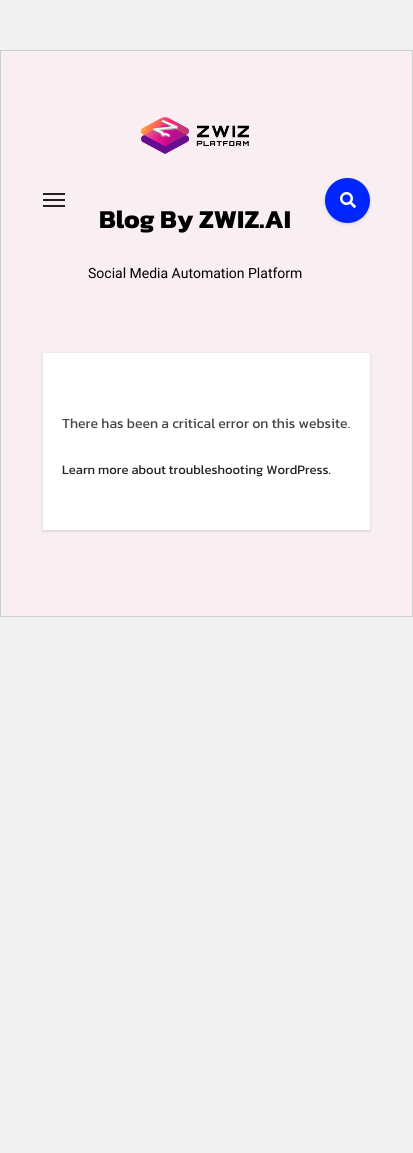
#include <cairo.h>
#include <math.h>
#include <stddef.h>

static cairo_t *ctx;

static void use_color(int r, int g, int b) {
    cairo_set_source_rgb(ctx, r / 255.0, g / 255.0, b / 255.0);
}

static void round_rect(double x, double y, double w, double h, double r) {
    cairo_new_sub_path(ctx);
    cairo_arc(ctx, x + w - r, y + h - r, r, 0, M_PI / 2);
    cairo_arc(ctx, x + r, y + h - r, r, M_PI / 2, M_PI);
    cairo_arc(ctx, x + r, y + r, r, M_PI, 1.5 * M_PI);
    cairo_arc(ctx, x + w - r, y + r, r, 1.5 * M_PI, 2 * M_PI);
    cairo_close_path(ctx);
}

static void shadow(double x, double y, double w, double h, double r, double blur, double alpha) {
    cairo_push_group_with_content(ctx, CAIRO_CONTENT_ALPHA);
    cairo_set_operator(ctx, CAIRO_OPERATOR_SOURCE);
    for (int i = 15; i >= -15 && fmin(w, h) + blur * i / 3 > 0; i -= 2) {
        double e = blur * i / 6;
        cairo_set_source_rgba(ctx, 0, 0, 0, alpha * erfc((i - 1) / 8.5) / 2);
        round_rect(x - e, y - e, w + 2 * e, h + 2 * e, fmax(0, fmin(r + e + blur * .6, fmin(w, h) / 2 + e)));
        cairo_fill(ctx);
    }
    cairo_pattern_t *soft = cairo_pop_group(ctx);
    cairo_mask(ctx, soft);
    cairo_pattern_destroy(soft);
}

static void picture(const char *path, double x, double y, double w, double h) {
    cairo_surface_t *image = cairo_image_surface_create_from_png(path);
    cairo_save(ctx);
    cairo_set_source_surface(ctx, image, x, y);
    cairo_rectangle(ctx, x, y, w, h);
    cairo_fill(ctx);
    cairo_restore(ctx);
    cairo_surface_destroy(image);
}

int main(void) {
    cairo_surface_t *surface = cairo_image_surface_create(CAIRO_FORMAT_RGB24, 413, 1153);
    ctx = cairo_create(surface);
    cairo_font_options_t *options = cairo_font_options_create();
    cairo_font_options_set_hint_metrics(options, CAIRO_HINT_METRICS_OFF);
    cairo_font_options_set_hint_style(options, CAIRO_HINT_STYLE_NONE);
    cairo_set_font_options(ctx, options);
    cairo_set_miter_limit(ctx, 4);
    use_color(241, 241, 241);
    cairo_paint(ctx);
    use_color(249, 238, 242);
    cairo_rectangle(ctx, 0.5, 50.5, 412, 566);
    cairo_fill_preserve(ctx);
    use_color(204, 208, 212);
    cairo_set_line_width(ctx, 1);
    cairo_stroke(ctx);
    use_color(33, 33, 33);
    cairo_rectangle(ctx, 43, 193, 22, 2);
    cairo_fill(ctx);
    cairo_rectangle(ctx, 43, 199, 22, 2);
    cairo_fill(ctx);
    cairo_rectangle(ctx, 43, 205, 22, 2);
    cairo_fill(ctx);
    use_color(0, 0, 0);
    shadow(325, 179, 45, 45, 22.5, 1.5, 0.15);
    use_color(0, 37, 255);
    cairo_arc(ctx, 347.5, 200.5, 22.5, 0, 2 * M_PI);
    cairo_fill(ctx);
    picture("img1.png", 340, 192, 16, 16);
    picture("img2.png", 141, 117, 108, 37);
    cairo_select_font_face(ctx, "Kanit", CAIRO_FONT_SLANT_NORMAL, CAIRO_FONT_WEIGHT_BOLD);
    cairo_set_font_size(ctx, 26);
    use_color(0, 0, 0);
    cairo_move_to(ctx, 99, 228);
    cairo_show_text(ctx, "Blog By ZWIZ.AI");
    cairo_select_font_face(ctx, "Roboto", CAIRO_FONT_SLANT_NORMAL, CAIRO_FONT_WEIGHT_NORMAL);
    cairo_set_font_size(ctx, 14);
    cairo_move_to(ctx, 88, 278);
    cairo_show_text(ctx, "Social Media Automation Platform");
    use_color(0, 0, 0);
    shadow(43, 354, 327, 177, 0, 1.5, 0.15);
    use_color(255, 255, 255);
    cairo_rectangle(ctx, 43, 353, 327, 177);
    cairo_fill(ctx);
    cairo_select_font_face(ctx, "Kanit", CAIRO_FONT_SLANT_NORMAL, CAIRO_FONT_WEIGHT_NORMAL);
    use_color(68, 68, 68);
    cairo_move_to(ctx, 62, 428);
    cairo_show_text(ctx, "There has been a critical error on this website.");
    cairo_set_font_size(ctx, 13);
    use_color(33, 33, 33);
    cairo_move_to(ctx, 62, 474);
    cairo_show_text(ctx, "Learn more about troubleshooting WordPress.");
    cairo_surface_write_to_png(surface, "result.png");
    cairo_font_options_destroy(options);
    cairo_destroy(ctx);
    cairo_surface_destroy(surface);
    return 0;
}
